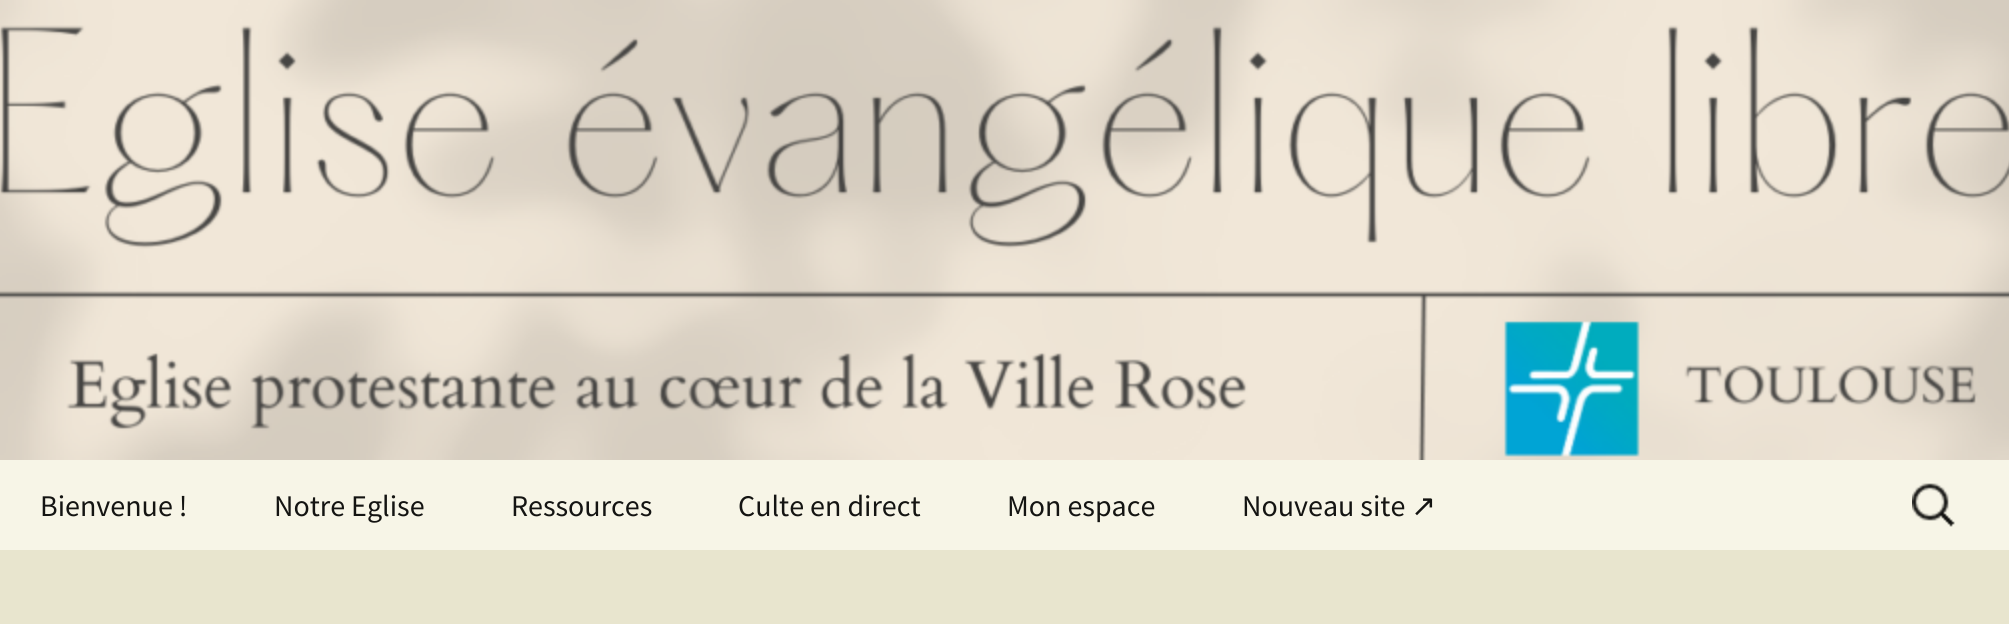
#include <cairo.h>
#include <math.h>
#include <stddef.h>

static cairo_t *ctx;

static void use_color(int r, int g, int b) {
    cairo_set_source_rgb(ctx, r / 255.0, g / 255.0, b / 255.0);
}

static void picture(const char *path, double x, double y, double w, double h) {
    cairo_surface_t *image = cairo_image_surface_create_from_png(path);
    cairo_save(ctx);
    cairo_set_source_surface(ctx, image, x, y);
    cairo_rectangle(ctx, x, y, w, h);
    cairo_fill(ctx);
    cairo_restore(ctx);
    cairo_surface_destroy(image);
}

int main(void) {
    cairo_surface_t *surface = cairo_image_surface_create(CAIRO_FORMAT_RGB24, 2009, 624);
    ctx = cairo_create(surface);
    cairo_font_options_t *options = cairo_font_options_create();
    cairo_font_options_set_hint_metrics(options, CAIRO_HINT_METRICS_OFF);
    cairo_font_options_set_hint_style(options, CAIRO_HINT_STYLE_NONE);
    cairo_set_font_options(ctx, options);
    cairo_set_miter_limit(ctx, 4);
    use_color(255, 255, 255);
    cairo_paint(ctx);
    picture("img1.png", 0, 0, 2009, 460);
    use_color(247, 245, 231);
    cairo_rectangle(ctx, 0, 460, 2009, 90);
    cairo_fill(ctx);
    cairo_select_font_face(ctx, "Source Sans Pro", CAIRO_FONT_SLANT_NORMAL, CAIRO_FONT_WEIGHT_NORMAL);
    cairo_set_font_size(ctx, 30);
    use_color(20, 20, 18);
    cairo_move_to(ctx, 40, 516);
    cairo_show_text(ctx, "Bienvenue !");
    cairo_move_to(ctx, 274, 516);
    cairo_show_text(ctx, "Notre Eglise");
    cairo_move_to(ctx, 511, 516);
    cairo_show_text(ctx, "Ressources");
    cairo_move_to(ctx, 738, 516);
    cairo_show_text(ctx, "Culte en direct");
    cairo_move_to(ctx, 1007, 516);
    cairo_show_text(ctx, "Mon espace");
    cairo_move_to(ctx, 1242, 516);
    cairo_show_text(ctx, "Nouveau site");
    cairo_select_font_face(ctx, "DejaVu Sans", CAIRO_FONT_SLANT_NORMAL, CAIRO_FONT_WEIGHT_NORMAL);
    cairo_move_to(ctx, 1411, 516);
    cairo_show_text(ctx, "↗");
    picture("img2.png", 1912, 483, 43, 44);
    use_color(232, 229, 206);
    cairo_rectangle(ctx, 0, 550, 2009, 74);
    cairo_fill(ctx);
    cairo_surface_write_to_png(surface, "result.png");
    cairo_font_options_destroy(options);
    cairo_destroy(ctx);
    cairo_surface_destroy(surface);
    return 0;
}
